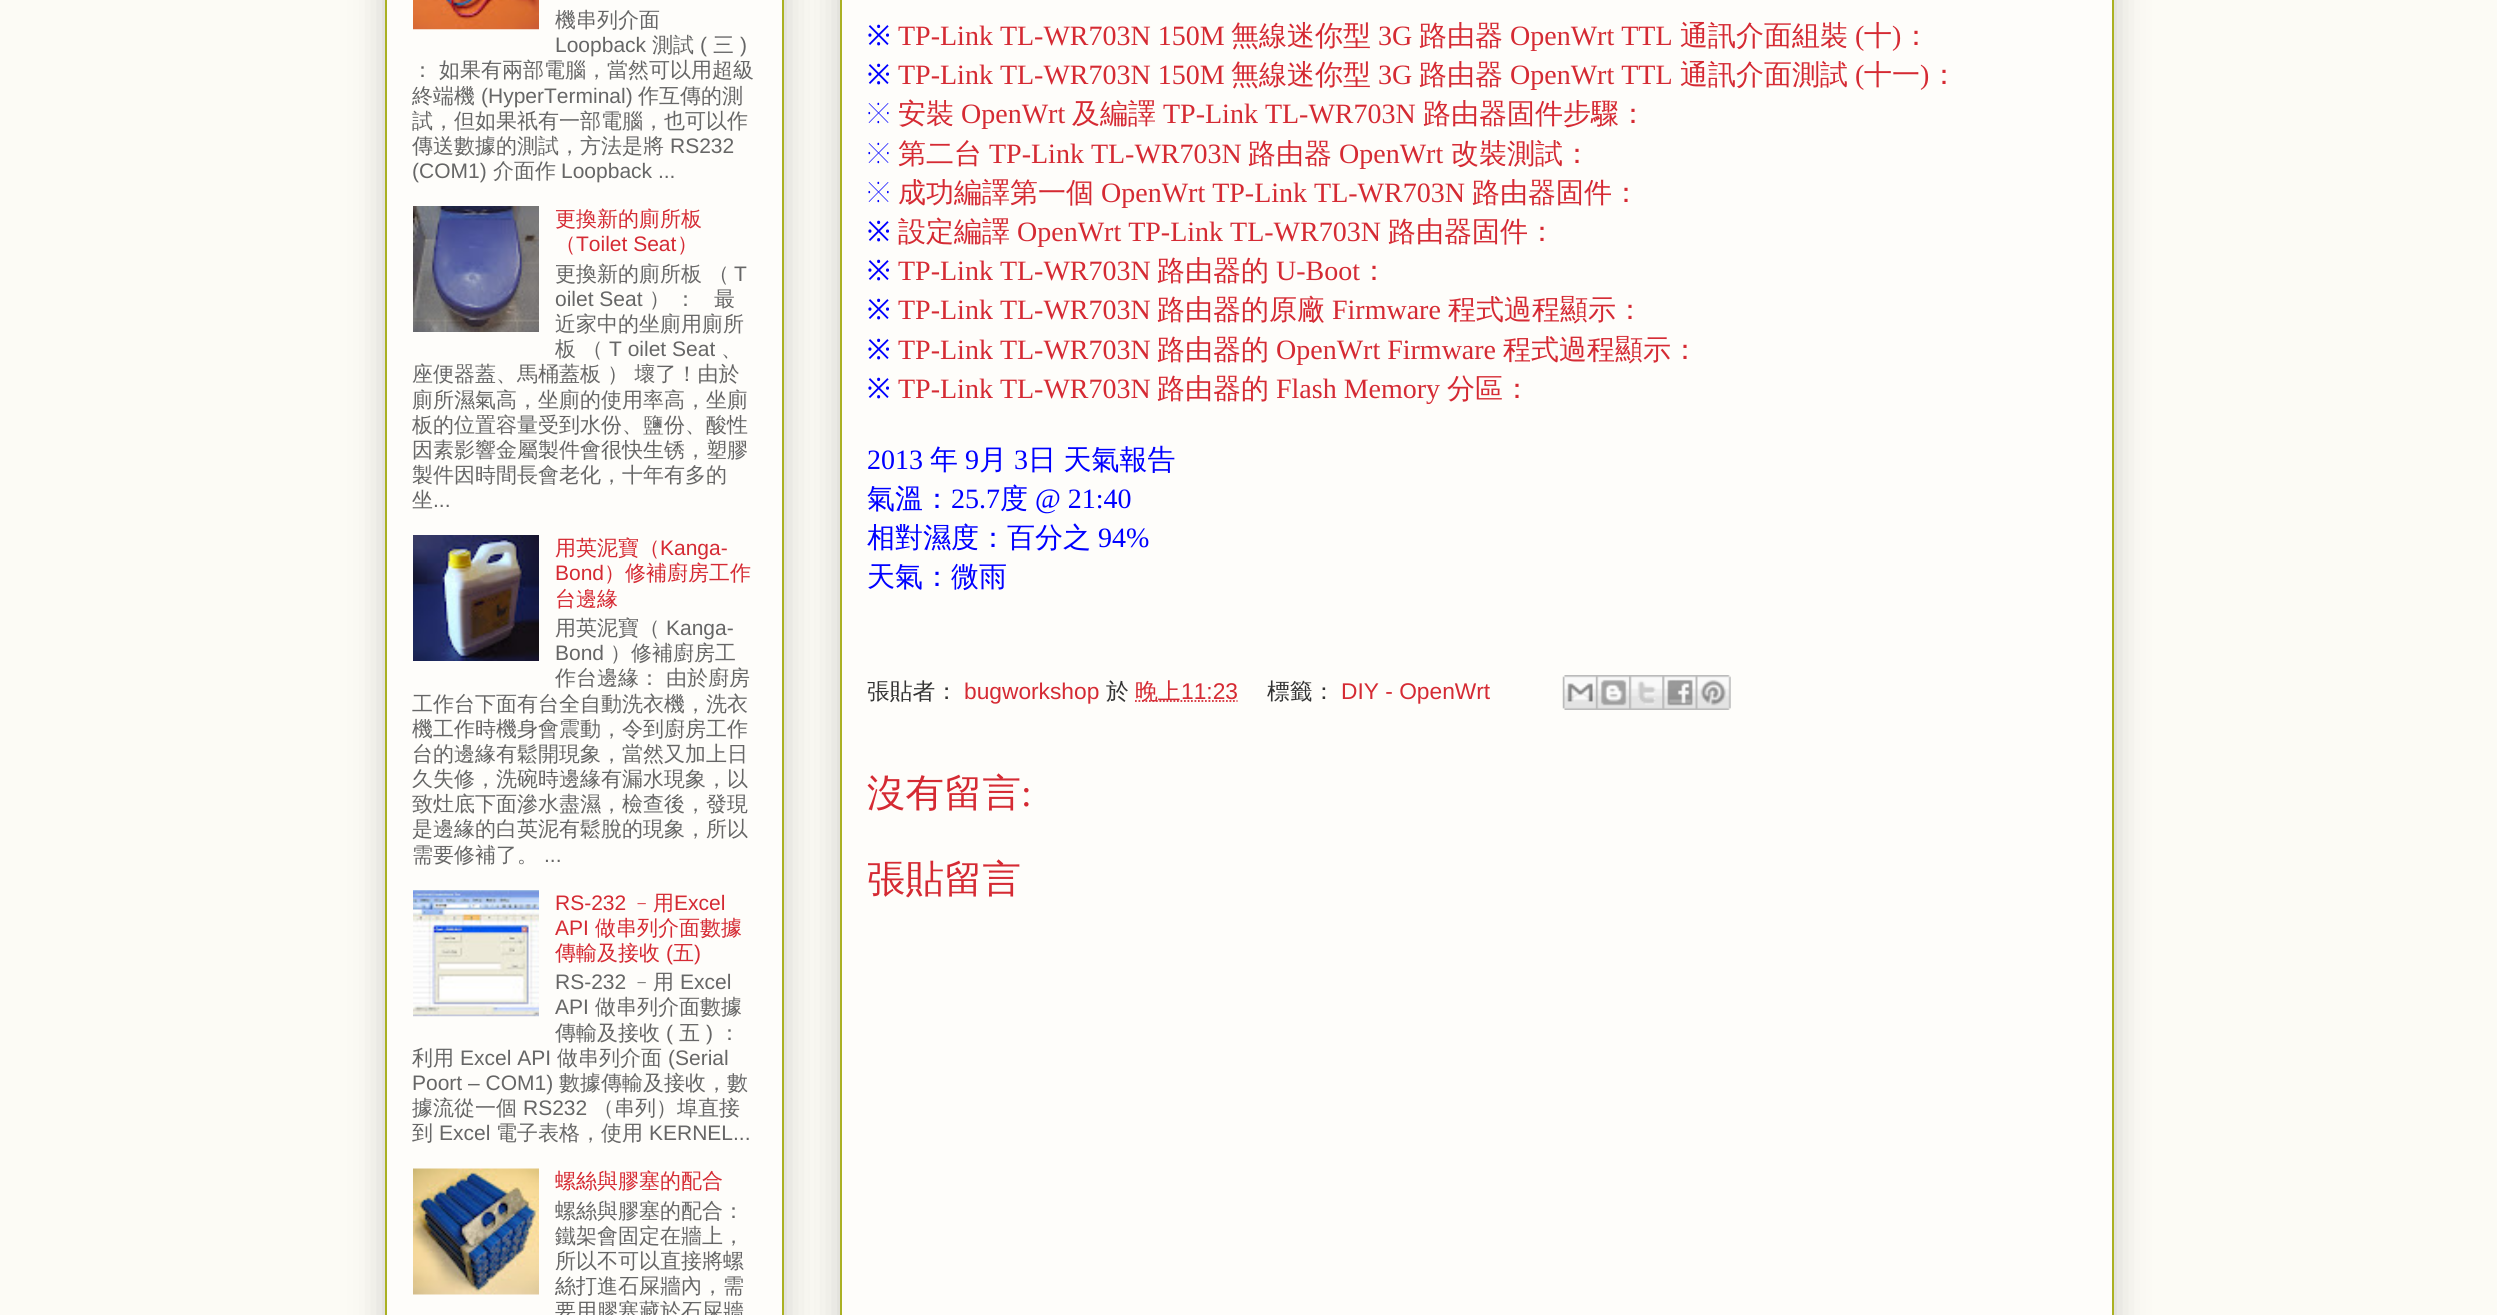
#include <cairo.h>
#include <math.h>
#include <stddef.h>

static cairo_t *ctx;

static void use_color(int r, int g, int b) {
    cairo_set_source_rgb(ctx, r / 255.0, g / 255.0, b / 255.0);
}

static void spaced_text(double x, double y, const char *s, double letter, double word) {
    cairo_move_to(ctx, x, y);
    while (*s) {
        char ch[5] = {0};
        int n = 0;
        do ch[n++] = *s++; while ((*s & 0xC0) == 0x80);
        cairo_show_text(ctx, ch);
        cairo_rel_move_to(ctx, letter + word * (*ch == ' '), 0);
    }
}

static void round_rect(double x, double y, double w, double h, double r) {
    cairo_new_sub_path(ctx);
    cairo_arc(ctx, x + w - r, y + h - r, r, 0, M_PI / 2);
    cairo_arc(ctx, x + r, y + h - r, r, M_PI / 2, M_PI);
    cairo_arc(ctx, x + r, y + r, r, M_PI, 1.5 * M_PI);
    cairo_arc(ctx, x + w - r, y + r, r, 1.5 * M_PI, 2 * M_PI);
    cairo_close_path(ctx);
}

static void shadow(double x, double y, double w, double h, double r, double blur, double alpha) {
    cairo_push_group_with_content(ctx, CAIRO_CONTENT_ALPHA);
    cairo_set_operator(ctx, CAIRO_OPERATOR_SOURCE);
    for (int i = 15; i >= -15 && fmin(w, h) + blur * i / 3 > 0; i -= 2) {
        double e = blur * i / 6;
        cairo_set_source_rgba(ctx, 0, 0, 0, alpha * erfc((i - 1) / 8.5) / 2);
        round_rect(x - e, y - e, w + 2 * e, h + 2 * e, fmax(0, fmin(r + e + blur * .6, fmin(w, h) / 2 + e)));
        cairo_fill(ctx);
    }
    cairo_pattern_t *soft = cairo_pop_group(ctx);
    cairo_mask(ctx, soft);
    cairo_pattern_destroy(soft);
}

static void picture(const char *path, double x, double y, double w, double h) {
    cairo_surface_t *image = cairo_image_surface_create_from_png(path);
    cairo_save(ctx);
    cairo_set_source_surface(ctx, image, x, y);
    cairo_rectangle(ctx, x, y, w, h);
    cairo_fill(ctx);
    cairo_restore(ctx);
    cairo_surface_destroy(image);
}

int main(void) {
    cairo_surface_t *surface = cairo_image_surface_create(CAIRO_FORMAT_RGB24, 2497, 1315);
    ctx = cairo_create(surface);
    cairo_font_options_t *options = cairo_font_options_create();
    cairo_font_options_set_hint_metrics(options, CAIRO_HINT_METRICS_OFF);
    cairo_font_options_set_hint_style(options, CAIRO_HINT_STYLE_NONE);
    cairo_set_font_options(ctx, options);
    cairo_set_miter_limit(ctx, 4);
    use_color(252, 251, 245);
    cairo_paint(ctx);
    use_color(0, 0, 0);
    shadow(385, -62, 399, 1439, 9, 17.5, 0.2);
    use_color(254, 253, 250);
    cairo_rectangle(ctx, 386, -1, 397, 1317);
    cairo_fill_preserve(ctx);
    use_color(170, 177, 35);
    cairo_stroke(ctx);
    picture("img1.png", 413, 0, 126, 30);
    cairo_select_font_face(ctx, "WenQuanYi Zen Hei Medium", CAIRO_FONT_SLANT_NORMAL, CAIRO_FONT_WEIGHT_NORMAL);
    cairo_set_font_size(ctx, 21);
    use_color(102, 102, 102);
    cairo_move_to(ctx, 555, 27);
    cairo_show_text(ctx, "機串列介面");
    cairo_select_font_face(ctx, "Liberation Sans", CAIRO_FONT_SLANT_NORMAL, CAIRO_FONT_WEIGHT_NORMAL);
    cairo_move_to(ctx, 555, 52);
    cairo_show_text(ctx, "Loopback");
    cairo_select_font_face(ctx, "WenQuanYi Zen Hei Medium", CAIRO_FONT_SLANT_NORMAL, CAIRO_FONT_WEIGHT_NORMAL);
    cairo_move_to(ctx, 652, 52);
    cairo_show_text(ctx, "測試");
    cairo_select_font_face(ctx, "Liberation Sans", CAIRO_FONT_SLANT_NORMAL, CAIRO_FONT_WEIGHT_NORMAL);
    cairo_move_to(ctx, 700, 52);
    cairo_show_text(ctx, "(");
    cairo_select_font_face(ctx, "WenQuanYi Zen Hei Medium", CAIRO_FONT_SLANT_NORMAL, CAIRO_FONT_WEIGHT_NORMAL);
    cairo_move_to(ctx, 713, 52);
    cairo_show_text(ctx, "三");
    cairo_select_font_face(ctx, "Liberation Sans", CAIRO_FONT_SLANT_NORMAL, CAIRO_FONT_WEIGHT_NORMAL);
    cairo_move_to(ctx, 740, 52);
    cairo_show_text(ctx, ")");
    cairo_select_font_face(ctx, "WenQuanYi Zen Hei Medium", CAIRO_FONT_SLANT_NORMAL, CAIRO_FONT_WEIGHT_NORMAL);
    cairo_move_to(ctx, 412, 77);
    cairo_show_text(ctx, "：");
    cairo_move_to(ctx, 439, 77);
    cairo_show_text(ctx, "如果有兩部電腦，當然可以用超級");
    cairo_move_to(ctx, 412, 103);
    cairo_show_text(ctx, "終端機");
    cairo_select_font_face(ctx, "Liberation Sans", CAIRO_FONT_SLANT_NORMAL, CAIRO_FONT_WEIGHT_NORMAL);
    cairo_move_to(ctx, 481, 103);
    cairo_show_text(ctx, "(HyperTerminal)");
    cairo_select_font_face(ctx, "WenQuanYi Zen Hei Medium", CAIRO_FONT_SLANT_NORMAL, CAIRO_FONT_WEIGHT_NORMAL);
    cairo_move_to(ctx, 638, 103);
    cairo_show_text(ctx, "作互傳的測");
    cairo_move_to(ctx, 412, 128);
    cairo_show_text(ctx, "試，但如果祇有一部電腦，也可以作");
    cairo_move_to(ctx, 412, 153);
    cairo_show_text(ctx, "傳送數據的測試，方法是將");
    cairo_select_font_face(ctx, "Liberation Sans", CAIRO_FONT_SLANT_NORMAL, CAIRO_FONT_WEIGHT_NORMAL);
    cairo_move_to(ctx, 670, 153);
    cairo_show_text(ctx, "RS232");
    cairo_move_to(ctx, 412, 178);
    cairo_show_text(ctx, "(COM1)");
    cairo_select_font_face(ctx, "WenQuanYi Zen Hei Medium", CAIRO_FONT_SLANT_NORMAL, CAIRO_FONT_WEIGHT_NORMAL);
    cairo_move_to(ctx, 493, 178);
    cairo_show_text(ctx, "介面作");
    cairo_select_font_face(ctx, "Liberation Sans", CAIRO_FONT_SLANT_NORMAL, CAIRO_FONT_WEIGHT_NORMAL);
    cairo_move_to(ctx, 561, 178);
    cairo_show_text(ctx, "Loopback ...");
    picture("img2.png", 413, 206, 126, 126);
    cairo_select_font_face(ctx, "WenQuanYi Zen Hei Medium", CAIRO_FONT_SLANT_NORMAL, CAIRO_FONT_WEIGHT_NORMAL);
    use_color(213, 42, 51);
    cairo_move_to(ctx, 555, 226);
    cairo_show_text(ctx, "更換新的廁所板");
    cairo_move_to(ctx, 555, 251);
    cairo_show_text(ctx, "（");
    cairo_select_font_face(ctx, "Liberation Sans", CAIRO_FONT_SLANT_NORMAL, CAIRO_FONT_WEIGHT_NORMAL);
    cairo_move_to(ctx, 576, 251);
    cairo_show_text(ctx, "Toilet Seat");
    cairo_select_font_face(ctx, "WenQuanYi Zen Hei Medium", CAIRO_FONT_SLANT_NORMAL, CAIRO_FONT_WEIGHT_NORMAL);
    cairo_move_to(ctx, 677, 251);
    cairo_show_text(ctx, "）");
    use_color(102, 102, 102);
    cairo_move_to(ctx, 555, 281);
    cairo_show_text(ctx, "更換新的廁所板 （");
    cairo_select_font_face(ctx, "Liberation Sans", CAIRO_FONT_SLANT_NORMAL, CAIRO_FONT_WEIGHT_NORMAL);
    cairo_move_to(ctx, 734, 281);
    cairo_show_text(ctx, "T");
    cairo_move_to(ctx, 555, 306);
    cairo_show_text(ctx, "oilet Seat");
    cairo_select_font_face(ctx, "WenQuanYi Zen Hei Medium", CAIRO_FONT_SLANT_NORMAL, CAIRO_FONT_WEIGHT_NORMAL);
    cairo_move_to(ctx, 649, 306);
    cairo_show_text(ctx, "）");
    cairo_move_to(ctx, 675, 306);
    cairo_show_text(ctx, "：");
    cairo_move_to(ctx, 714, 306);
    cairo_show_text(ctx, "最");
    cairo_move_to(ctx, 555, 331);
    cairo_show_text(ctx, "近家中的坐廁用廁所");
    cairo_move_to(ctx, 555, 356);
    cairo_show_text(ctx, "板");
    cairo_move_to(ctx, 582, 356);
    cairo_show_text(ctx, "（");
    cairo_select_font_face(ctx, "Liberation Sans", CAIRO_FONT_SLANT_NORMAL, CAIRO_FONT_WEIGHT_NORMAL);
    cairo_move_to(ctx, 609, 356);
    cairo_show_text(ctx, "T oilet Seat");
    cairo_select_font_face(ctx, "WenQuanYi Zen Hei Medium", CAIRO_FONT_SLANT_NORMAL, CAIRO_FONT_WEIGHT_NORMAL);
    cairo_move_to(ctx, 721, 356);
    cairo_show_text(ctx, "、");
    cairo_move_to(ctx, 412, 381);
    cairo_show_text(ctx, "座便器蓋、馬桶蓋板 ） 壞了！由於");
    cairo_move_to(ctx, 412, 407);
    cairo_show_text(ctx, "廁所濕氣高，坐廁的使用率高，坐廁");
    cairo_move_to(ctx, 412, 432);
    cairo_show_text(ctx, "板的位置容量受到水份、鹽份、酸性");
    cairo_move_to(ctx, 412, 457);
    cairo_show_text(ctx, "因素影響金屬製件會很快生锈，塑膠");
    cairo_move_to(ctx, 412, 482);
    cairo_show_text(ctx, "製件因時間長會老化，十年有多的");
    cairo_move_to(ctx, 412, 507);
    cairo_show_text(ctx, "坐");
    cairo_select_font_face(ctx, "Liberation Sans", CAIRO_FONT_SLANT_NORMAL, CAIRO_FONT_WEIGHT_NORMAL);
    cairo_move_to(ctx, 433, 507);
    cairo_show_text(ctx, "...");
    picture("img3.png", 413, 535, 126, 126);
    cairo_select_font_face(ctx, "WenQuanYi Zen Hei Medium", CAIRO_FONT_SLANT_NORMAL, CAIRO_FONT_WEIGHT_NORMAL);
    use_color(213, 42, 51);
    cairo_move_to(ctx, 555, 555);
    cairo_show_text(ctx, "用英泥寶（");
    cairo_select_font_face(ctx, "Liberation Sans", CAIRO_FONT_SLANT_NORMAL, CAIRO_FONT_WEIGHT_NORMAL);
    cairo_move_to(ctx, 660, 555);
    cairo_show_text(ctx, "Kanga-");
    cairo_move_to(ctx, 555, 580);
    cairo_show_text(ctx, "Bond");
    cairo_select_font_face(ctx, "WenQuanYi Zen Hei Medium", CAIRO_FONT_SLANT_NORMAL, CAIRO_FONT_WEIGHT_NORMAL);
    cairo_move_to(ctx, 604, 580);
    cairo_show_text(ctx, "）修補廚房工作");
    cairo_move_to(ctx, 555, 606);
    cairo_show_text(ctx, "台邊緣");
    use_color(102, 102, 102);
    cairo_move_to(ctx, 555, 635);
    cairo_show_text(ctx, "用英泥寶（");
    cairo_select_font_face(ctx, "Liberation Sans", CAIRO_FONT_SLANT_NORMAL, CAIRO_FONT_WEIGHT_NORMAL);
    cairo_move_to(ctx, 666, 635);
    cairo_show_text(ctx, "Kanga-");
    cairo_move_to(ctx, 555, 660);
    cairo_show_text(ctx, "Bond");
    cairo_select_font_face(ctx, "WenQuanYi Zen Hei Medium", CAIRO_FONT_SLANT_NORMAL, CAIRO_FONT_WEIGHT_NORMAL);
    cairo_move_to(ctx, 610, 660);
    cairo_show_text(ctx, "）修補廚房工");
    cairo_move_to(ctx, 555, 685);
    cairo_show_text(ctx, "作台邊緣：");
    cairo_move_to(ctx, 666, 685);
    cairo_show_text(ctx, "由於廚房");
    cairo_move_to(ctx, 412, 711);
    cairo_show_text(ctx, "工作台下面有台全自動洗衣機，洗衣");
    cairo_move_to(ctx, 412, 736);
    cairo_show_text(ctx, "機工作時機身會震動，令到廚房工作");
    cairo_move_to(ctx, 412, 761);
    cairo_show_text(ctx, "台的邊緣有鬆開現象，當然又加上日");
    cairo_move_to(ctx, 412, 786);
    cairo_show_text(ctx, "久失修，洗碗時邊緣有漏水現象，以");
    cairo_move_to(ctx, 412, 811);
    cairo_show_text(ctx, "致灶底下面滲水盡濕，檢查後，發現");
    cairo_move_to(ctx, 412, 836);
    cairo_show_text(ctx, "是邊緣的白英泥有鬆脫的現象，所以");
    cairo_move_to(ctx, 412, 862);
    cairo_show_text(ctx, "需要修補了。");
    cairo_select_font_face(ctx, "Liberation Sans", CAIRO_FONT_SLANT_NORMAL, CAIRO_FONT_WEIGHT_NORMAL);
    cairo_move_to(ctx, 544, 862);
    cairo_show_text(ctx, "...");
    picture("img4.png", 413, 890, 126, 127);
    use_color(213, 42, 51);
    cairo_move_to(ctx, 555, 910);
    cairo_show_text(ctx, "RS-232");
    cairo_select_font_face(ctx, "WenQuanYi Zen Hei Medium", CAIRO_FONT_SLANT_NORMAL, CAIRO_FONT_WEIGHT_NORMAL);
    cairo_move_to(ctx, 632, 910);
    cairo_show_text(ctx, "﹣用");
    cairo_select_font_face(ctx, "Liberation Sans", CAIRO_FONT_SLANT_NORMAL, CAIRO_FONT_WEIGHT_NORMAL);
    cairo_move_to(ctx, 674, 910);
    cairo_show_text(ctx, "Excel");
    cairo_move_to(ctx, 555, 935);
    cairo_show_text(ctx, "API");
    cairo_select_font_face(ctx, "WenQuanYi Zen Hei Medium", CAIRO_FONT_SLANT_NORMAL, CAIRO_FONT_WEIGHT_NORMAL);
    cairo_move_to(ctx, 595, 935);
    cairo_show_text(ctx, "做串列介面數據");
    cairo_move_to(ctx, 555, 960);
    cairo_show_text(ctx, "傳輸及接收");
    cairo_select_font_face(ctx, "Liberation Sans", CAIRO_FONT_SLANT_NORMAL, CAIRO_FONT_WEIGHT_NORMAL);
    cairo_move_to(ctx, 666, 960);
    cairo_show_text(ctx, "(");
    cairo_select_font_face(ctx, "WenQuanYi Zen Hei Medium", CAIRO_FONT_SLANT_NORMAL, CAIRO_FONT_WEIGHT_NORMAL);
    cairo_move_to(ctx, 673, 960);
    cairo_show_text(ctx, "五");
    cairo_select_font_face(ctx, "Liberation Sans", CAIRO_FONT_SLANT_NORMAL, CAIRO_FONT_WEIGHT_NORMAL);
    cairo_move_to(ctx, 694, 960);
    cairo_show_text(ctx, ")");
    use_color(102, 102, 102);
    cairo_move_to(ctx, 555, 989);
    cairo_show_text(ctx, "RS-232");
    cairo_select_font_face(ctx, "WenQuanYi Zen Hei Medium", CAIRO_FONT_SLANT_NORMAL, CAIRO_FONT_WEIGHT_NORMAL);
    cairo_move_to(ctx, 632, 989);
    cairo_show_text(ctx, "﹣用");
    cairo_select_font_face(ctx, "Liberation Sans", CAIRO_FONT_SLANT_NORMAL, CAIRO_FONT_WEIGHT_NORMAL);
    cairo_move_to(ctx, 680, 989);
    cairo_show_text(ctx, "Excel");
    cairo_move_to(ctx, 555, 1014);
    cairo_show_text(ctx, "API");
    cairo_select_font_face(ctx, "WenQuanYi Zen Hei Medium", CAIRO_FONT_SLANT_NORMAL, CAIRO_FONT_WEIGHT_NORMAL);
    cairo_move_to(ctx, 595, 1014);
    cairo_show_text(ctx, "做串列介面數據");
    cairo_move_to(ctx, 555, 1040);
    cairo_show_text(ctx, "傳輸及接收");
    cairo_select_font_face(ctx, "Liberation Sans", CAIRO_FONT_SLANT_NORMAL, CAIRO_FONT_WEIGHT_NORMAL);
    cairo_move_to(ctx, 666, 1040);
    cairo_show_text(ctx, "(");
    cairo_select_font_face(ctx, "WenQuanYi Zen Hei Medium", CAIRO_FONT_SLANT_NORMAL, CAIRO_FONT_WEIGHT_NORMAL);
    cairo_move_to(ctx, 679, 1040);
    cairo_show_text(ctx, "五");
    cairo_select_font_face(ctx, "Liberation Sans", CAIRO_FONT_SLANT_NORMAL, CAIRO_FONT_WEIGHT_NORMAL);
    cairo_move_to(ctx, 706, 1040);
    cairo_show_text(ctx, ")");
    cairo_select_font_face(ctx, "WenQuanYi Zen Hei Medium", CAIRO_FONT_SLANT_NORMAL, CAIRO_FONT_WEIGHT_NORMAL);
    cairo_move_to(ctx, 719, 1040);
    cairo_show_text(ctx, "：");
    cairo_move_to(ctx, 412, 1065);
    cairo_show_text(ctx, "利用");
    cairo_select_font_face(ctx, "Liberation Sans", CAIRO_FONT_SLANT_NORMAL, CAIRO_FONT_WEIGHT_NORMAL);
    cairo_move_to(ctx, 460, 1065);
    cairo_show_text(ctx, "Excel API");
    cairo_select_font_face(ctx, "WenQuanYi Zen Hei Medium", CAIRO_FONT_SLANT_NORMAL, CAIRO_FONT_WEIGHT_NORMAL);
    cairo_move_to(ctx, 557, 1065);
    cairo_show_text(ctx, "做串列介面");
    cairo_select_font_face(ctx, "Liberation Sans", CAIRO_FONT_SLANT_NORMAL, CAIRO_FONT_WEIGHT_NORMAL);
    cairo_move_to(ctx, 668, 1065);
    cairo_show_text(ctx, "(Serial");
    cairo_move_to(ctx, 412, 1090);
    cairo_show_text(ctx, "Poort – COM1)");
    cairo_select_font_face(ctx, "WenQuanYi Zen Hei Medium", CAIRO_FONT_SLANT_NORMAL, CAIRO_FONT_WEIGHT_NORMAL);
    cairo_move_to(ctx, 559, 1090);
    cairo_show_text(ctx, "數據傳輸及接收，數");
    cairo_move_to(ctx, 412, 1115);
    cairo_show_text(ctx, "據流從一個");
    cairo_select_font_face(ctx, "Liberation Sans", CAIRO_FONT_SLANT_NORMAL, CAIRO_FONT_WEIGHT_NORMAL);
    cairo_move_to(ctx, 523, 1115);
    cairo_show_text(ctx, "RS232");
    cairo_select_font_face(ctx, "WenQuanYi Zen Hei Medium", CAIRO_FONT_SLANT_NORMAL, CAIRO_FONT_WEIGHT_NORMAL);
    cairo_move_to(ctx, 593, 1115);
    cairo_show_text(ctx, "（串列）埠直接");
    cairo_move_to(ctx, 412, 1140);
    cairo_show_text(ctx, "到");
    cairo_select_font_face(ctx, "Liberation Sans", CAIRO_FONT_SLANT_NORMAL, CAIRO_FONT_WEIGHT_NORMAL);
    cairo_move_to(ctx, 439, 1140);
    cairo_show_text(ctx, "Excel");
    cairo_select_font_face(ctx, "WenQuanYi Zen Hei Medium", CAIRO_FONT_SLANT_NORMAL, CAIRO_FONT_WEIGHT_NORMAL);
    cairo_move_to(ctx, 496, 1140);
    cairo_show_text(ctx, "電子表格，使用");
    cairo_select_font_face(ctx, "Liberation Sans", CAIRO_FONT_SLANT_NORMAL, CAIRO_FONT_WEIGHT_NORMAL);
    cairo_move_to(ctx, 649, 1140);
    cairo_show_text(ctx, "KERNEL...");
    picture("img5.png", 413, 1168, 126, 127);
    cairo_select_font_face(ctx, "WenQuanYi Zen Hei Medium", CAIRO_FONT_SLANT_NORMAL, CAIRO_FONT_WEIGHT_NORMAL);
    use_color(213, 42, 51);
    cairo_move_to(ctx, 555, 1188);
    cairo_show_text(ctx, "螺絲與膠塞的配合");
    use_color(102, 102, 102);
    cairo_move_to(ctx, 555, 1218);
    cairo_show_text(ctx, "螺絲與膠塞的配合：");
    cairo_move_to(ctx, 555, 1243);
    cairo_show_text(ctx, "鐵架會固定在牆上，");
    cairo_move_to(ctx, 555, 1268);
    cairo_show_text(ctx, "所以不可以直接將螺");
    cairo_move_to(ctx, 555, 1293);
    cairo_show_text(ctx, "絲打進石屎牆內，需");
    cairo_move_to(ctx, 555, 1318);
    cairo_show_text(ctx, "要用膠塞藏於石屎牆");
    use_color(0, 0, 0);
    shadow(840, -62, 1274, 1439, 9, 17.5, 0.2);
    use_color(254, 253, 250);
    cairo_rectangle(ctx, 841, -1, 1272, 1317);
    cairo_fill_preserve(ctx);
    use_color(170, 177, 35);
    cairo_stroke(ctx);
    cairo_select_font_face(ctx, "Noto Sans", CAIRO_FONT_SLANT_NORMAL, CAIRO_FONT_WEIGHT_NORMAL);
    cairo_set_font_size(ctx, 28);
    use_color(0, 0, 255);
    cairo_move_to(ctx, 867, 45);
    cairo_show_text(ctx, "※");
    cairo_select_font_face(ctx, "Liberation Serif", CAIRO_FONT_SLANT_NORMAL, CAIRO_FONT_WEIGHT_NORMAL);
    use_color(213, 42, 51);
    cairo_move_to(ctx, 898, 45);
    cairo_show_text(ctx, "TP-Link TL-WR703N 150M");
    cairo_select_font_face(ctx, "WenQuanYi Zen Hei Medium", CAIRO_FONT_SLANT_NORMAL, CAIRO_FONT_WEIGHT_NORMAL);
    cairo_move_to(ctx, 1231, 45);
    cairo_show_text(ctx, "無線迷你型");
    cairo_select_font_face(ctx, "Liberation Serif", CAIRO_FONT_SLANT_NORMAL, CAIRO_FONT_WEIGHT_NORMAL);
    cairo_move_to(ctx, 1378, 45);
    cairo_show_text(ctx, "3G");
    cairo_select_font_face(ctx, "WenQuanYi Zen Hei Medium", CAIRO_FONT_SLANT_NORMAL, CAIRO_FONT_WEIGHT_NORMAL);
    cairo_move_to(ctx, 1419, 45);
    cairo_show_text(ctx, "路由器");
    cairo_select_font_face(ctx, "Liberation Serif", CAIRO_FONT_SLANT_NORMAL, CAIRO_FONT_WEIGHT_NORMAL);
    cairo_move_to(ctx, 1510, 45);
    cairo_show_text(ctx, "OpenWrt TTL");
    cairo_select_font_face(ctx, "WenQuanYi Zen Hei Medium", CAIRO_FONT_SLANT_NORMAL, CAIRO_FONT_WEIGHT_NORMAL);
    cairo_move_to(ctx, 1680, 45);
    cairo_show_text(ctx, "通訊介面組裝");
    cairo_select_font_face(ctx, "Liberation Serif", CAIRO_FONT_SLANT_NORMAL, CAIRO_FONT_WEIGHT_NORMAL);
    cairo_move_to(ctx, 1855, 45);
    cairo_show_text(ctx, "(");
    cairo_select_font_face(ctx, "WenQuanYi Zen Hei Medium", CAIRO_FONT_SLANT_NORMAL, CAIRO_FONT_WEIGHT_NORMAL);
    cairo_move_to(ctx, 1864, 45);
    cairo_show_text(ctx, "十");
    cairo_select_font_face(ctx, "Liberation Serif", CAIRO_FONT_SLANT_NORMAL, CAIRO_FONT_WEIGHT_NORMAL);
    cairo_move_to(ctx, 1892, 45);
    cairo_show_text(ctx, ")");
    cairo_select_font_face(ctx, "WenQuanYi Zen Hei Medium", CAIRO_FONT_SLANT_NORMAL, CAIRO_FONT_WEIGHT_NORMAL);
    cairo_move_to(ctx, 1902, 45);
    cairo_show_text(ctx, "：");
    cairo_select_font_face(ctx, "Noto Sans", CAIRO_FONT_SLANT_NORMAL, CAIRO_FONT_WEIGHT_NORMAL);
    use_color(0, 0, 255);
    cairo_move_to(ctx, 867, 84);
    cairo_show_text(ctx, "※");
    cairo_select_font_face(ctx, "Liberation Serif", CAIRO_FONT_SLANT_NORMAL, CAIRO_FONT_WEIGHT_NORMAL);
    use_color(213, 42, 51);
    cairo_move_to(ctx, 898, 84);
    cairo_show_text(ctx, "TP-Link TL-WR703N 150M");
    cairo_select_font_face(ctx, "WenQuanYi Zen Hei Medium", CAIRO_FONT_SLANT_NORMAL, CAIRO_FONT_WEIGHT_NORMAL);
    cairo_move_to(ctx, 1231, 84);
    cairo_show_text(ctx, "無線迷你型");
    cairo_select_font_face(ctx, "Liberation Serif", CAIRO_FONT_SLANT_NORMAL, CAIRO_FONT_WEIGHT_NORMAL);
    cairo_move_to(ctx, 1378, 84);
    cairo_show_text(ctx, "3G");
    cairo_select_font_face(ctx, "WenQuanYi Zen Hei Medium", CAIRO_FONT_SLANT_NORMAL, CAIRO_FONT_WEIGHT_NORMAL);
    cairo_move_to(ctx, 1419, 84);
    cairo_show_text(ctx, "路由器");
    cairo_select_font_face(ctx, "Liberation Serif", CAIRO_FONT_SLANT_NORMAL, CAIRO_FONT_WEIGHT_NORMAL);
    cairo_move_to(ctx, 1510, 84);
    cairo_show_text(ctx, "OpenWrt TTL");
    cairo_select_font_face(ctx, "WenQuanYi Zen Hei Medium", CAIRO_FONT_SLANT_NORMAL, CAIRO_FONT_WEIGHT_NORMAL);
    cairo_move_to(ctx, 1680, 84);
    cairo_show_text(ctx, "通訊介面測試");
    cairo_select_font_face(ctx, "Liberation Serif", CAIRO_FONT_SLANT_NORMAL, CAIRO_FONT_WEIGHT_NORMAL);
    cairo_move_to(ctx, 1855, 84);
    cairo_show_text(ctx, "(");
    cairo_select_font_face(ctx, "WenQuanYi Zen Hei Medium", CAIRO_FONT_SLANT_NORMAL, CAIRO_FONT_WEIGHT_NORMAL);
    cairo_move_to(ctx, 1864, 84);
    cairo_show_text(ctx, "十一");
    cairo_select_font_face(ctx, "Liberation Serif", CAIRO_FONT_SLANT_NORMAL, CAIRO_FONT_WEIGHT_NORMAL);
    cairo_move_to(ctx, 1920, 84);
    cairo_show_text(ctx, ")");
    cairo_select_font_face(ctx, "WenQuanYi Zen Hei Medium", CAIRO_FONT_SLANT_NORMAL, CAIRO_FONT_WEIGHT_NORMAL);
    cairo_move_to(ctx, 1930, 84);
    cairo_show_text(ctx, "：");
    cairo_select_font_face(ctx, "Noto Sans Thin", CAIRO_FONT_SLANT_NORMAL, CAIRO_FONT_WEIGHT_NORMAL);
    use_color(0, 0, 255);
    cairo_move_to(ctx, 867, 123);
    cairo_show_text(ctx, "※");
    cairo_select_font_face(ctx, "WenQuanYi Zen Hei Medium", CAIRO_FONT_SLANT_NORMAL, CAIRO_FONT_WEIGHT_NORMAL);
    use_color(213, 42, 51);
    cairo_move_to(ctx, 898, 123);
    cairo_show_text(ctx, "安裝");
    cairo_select_font_face(ctx, "Liberation Serif", CAIRO_FONT_SLANT_NORMAL, CAIRO_FONT_WEIGHT_NORMAL);
    cairo_move_to(ctx, 961, 123);
    cairo_show_text(ctx, "OpenWrt");
    cairo_select_font_face(ctx, "WenQuanYi Zen Hei Medium", CAIRO_FONT_SLANT_NORMAL, CAIRO_FONT_WEIGHT_NORMAL);
    cairo_move_to(ctx, 1072, 123);
    cairo_show_text(ctx, "及編譯");
    cairo_select_font_face(ctx, "Liberation Serif", CAIRO_FONT_SLANT_NORMAL, CAIRO_FONT_WEIGHT_NORMAL);
    cairo_move_to(ctx, 1163, 123);
    cairo_show_text(ctx, "TP-Link TL-WR703N");
    cairo_select_font_face(ctx, "WenQuanYi Zen Hei Medium", CAIRO_FONT_SLANT_NORMAL, CAIRO_FONT_WEIGHT_NORMAL);
    cairo_move_to(ctx, 1423, 123);
    cairo_show_text(ctx, "路由器固件步驟：");
    cairo_select_font_face(ctx, "Noto Sans Thin", CAIRO_FONT_SLANT_NORMAL, CAIRO_FONT_WEIGHT_NORMAL);
    use_color(0, 0, 255);
    cairo_move_to(ctx, 867, 163);
    cairo_show_text(ctx, "※");
    cairo_select_font_face(ctx, "WenQuanYi Zen Hei Medium", CAIRO_FONT_SLANT_NORMAL, CAIRO_FONT_WEIGHT_NORMAL);
    use_color(213, 42, 51);
    cairo_move_to(ctx, 898, 163);
    cairo_show_text(ctx, "第二台");
    cairo_select_font_face(ctx, "Liberation Serif", CAIRO_FONT_SLANT_NORMAL, CAIRO_FONT_WEIGHT_NORMAL);
    cairo_move_to(ctx, 989, 163);
    cairo_show_text(ctx, "TP-Link TL-WR703N");
    cairo_select_font_face(ctx, "WenQuanYi Zen Hei Medium", CAIRO_FONT_SLANT_NORMAL, CAIRO_FONT_WEIGHT_NORMAL);
    cairo_move_to(ctx, 1248, 163);
    cairo_show_text(ctx, "路由器");
    cairo_select_font_face(ctx, "Liberation Serif", CAIRO_FONT_SLANT_NORMAL, CAIRO_FONT_WEIGHT_NORMAL);
    cairo_move_to(ctx, 1339, 163);
    cairo_show_text(ctx, "OpenWrt");
    cairo_select_font_face(ctx, "WenQuanYi Zen Hei Medium", CAIRO_FONT_SLANT_NORMAL, CAIRO_FONT_WEIGHT_NORMAL);
    cairo_move_to(ctx, 1451, 163);
    cairo_show_text(ctx, "改裝測試：");
    cairo_select_font_face(ctx, "Noto Sans Thin", CAIRO_FONT_SLANT_NORMAL, CAIRO_FONT_WEIGHT_NORMAL);
    use_color(0, 0, 255);
    cairo_move_to(ctx, 867, 202);
    cairo_show_text(ctx, "※");
    cairo_select_font_face(ctx, "WenQuanYi Zen Hei Medium", CAIRO_FONT_SLANT_NORMAL, CAIRO_FONT_WEIGHT_NORMAL);
    use_color(213, 42, 51);
    cairo_move_to(ctx, 898, 202);
    cairo_show_text(ctx, "成功編譯第一個");
    cairo_select_font_face(ctx, "Liberation Serif", CAIRO_FONT_SLANT_NORMAL, CAIRO_FONT_WEIGHT_NORMAL);
    cairo_move_to(ctx, 1101, 202);
    cairo_show_text(ctx, "OpenWrt TP-Link TL-WR703N");
    cairo_select_font_face(ctx, "WenQuanYi Zen Hei Medium", CAIRO_FONT_SLANT_NORMAL, CAIRO_FONT_WEIGHT_NORMAL);
    cairo_move_to(ctx, 1472, 202);
    cairo_show_text(ctx, "路由器固件：");
    cairo_select_font_face(ctx, "Noto Sans", CAIRO_FONT_SLANT_NORMAL, CAIRO_FONT_WEIGHT_NORMAL);
    use_color(0, 0, 255);
    cairo_move_to(ctx, 867, 241);
    cairo_show_text(ctx, "※");
    cairo_select_font_face(ctx, "WenQuanYi Zen Hei Medium", CAIRO_FONT_SLANT_NORMAL, CAIRO_FONT_WEIGHT_NORMAL);
    use_color(213, 42, 51);
    cairo_move_to(ctx, 898, 241);
    cairo_show_text(ctx, "設定編譯");
    cairo_select_font_face(ctx, "Liberation Serif", CAIRO_FONT_SLANT_NORMAL, CAIRO_FONT_WEIGHT_NORMAL);
    cairo_move_to(ctx, 1017, 241);
    cairo_show_text(ctx, "OpenWrt TP-Link TL-WR703N");
    cairo_select_font_face(ctx, "WenQuanYi Zen Hei Medium", CAIRO_FONT_SLANT_NORMAL, CAIRO_FONT_WEIGHT_NORMAL);
    cairo_move_to(ctx, 1388, 241);
    cairo_show_text(ctx, "路由器固件：");
    cairo_select_font_face(ctx, "Noto Sans", CAIRO_FONT_SLANT_NORMAL, CAIRO_FONT_WEIGHT_NORMAL);
    use_color(0, 0, 255);
    cairo_move_to(ctx, 867, 280);
    cairo_show_text(ctx, "※");
    cairo_select_font_face(ctx, "Liberation Serif", CAIRO_FONT_SLANT_NORMAL, CAIRO_FONT_WEIGHT_NORMAL);
    use_color(213, 42, 51);
    cairo_move_to(ctx, 898, 280);
    cairo_show_text(ctx, "TP-Link TL-WR703N");
    cairo_select_font_face(ctx, "WenQuanYi Zen Hei Medium", CAIRO_FONT_SLANT_NORMAL, CAIRO_FONT_WEIGHT_NORMAL);
    cairo_move_to(ctx, 1157, 280);
    cairo_show_text(ctx, "路由器的");
    cairo_select_font_face(ctx, "Liberation Serif", CAIRO_FONT_SLANT_NORMAL, CAIRO_FONT_WEIGHT_NORMAL);
    cairo_move_to(ctx, 1276, 280);
    cairo_show_text(ctx, "U-Boot");
    cairo_select_font_face(ctx, "WenQuanYi Zen Hei Medium", CAIRO_FONT_SLANT_NORMAL, CAIRO_FONT_WEIGHT_NORMAL);
    cairo_move_to(ctx, 1360, 280);
    cairo_show_text(ctx, "：");
    cairo_select_font_face(ctx, "Noto Sans", CAIRO_FONT_SLANT_NORMAL, CAIRO_FONT_WEIGHT_NORMAL);
    use_color(0, 0, 255);
    cairo_move_to(ctx, 867, 319);
    cairo_show_text(ctx, "※");
    cairo_select_font_face(ctx, "Liberation Serif", CAIRO_FONT_SLANT_NORMAL, CAIRO_FONT_WEIGHT_NORMAL);
    use_color(213, 42, 51);
    cairo_move_to(ctx, 898, 319);
    cairo_show_text(ctx, "TP-Link TL-WR703N");
    cairo_select_font_face(ctx, "WenQuanYi Zen Hei Medium", CAIRO_FONT_SLANT_NORMAL, CAIRO_FONT_WEIGHT_NORMAL);
    cairo_move_to(ctx, 1157, 319);
    cairo_show_text(ctx, "路由器的原廠");
    cairo_select_font_face(ctx, "Liberation Serif", CAIRO_FONT_SLANT_NORMAL, CAIRO_FONT_WEIGHT_NORMAL);
    cairo_move_to(ctx, 1332, 319);
    cairo_show_text(ctx, "Firmware");
    cairo_select_font_face(ctx, "WenQuanYi Zen Hei Medium", CAIRO_FONT_SLANT_NORMAL, CAIRO_FONT_WEIGHT_NORMAL);
    cairo_move_to(ctx, 1448, 319);
    cairo_show_text(ctx, "程式過程顯示：");
    cairo_select_font_face(ctx, "Noto Sans", CAIRO_FONT_SLANT_NORMAL, CAIRO_FONT_WEIGHT_NORMAL);
    use_color(0, 0, 255);
    cairo_move_to(ctx, 867, 359);
    cairo_show_text(ctx, "※");
    cairo_select_font_face(ctx, "Liberation Serif", CAIRO_FONT_SLANT_NORMAL, CAIRO_FONT_WEIGHT_NORMAL);
    use_color(213, 42, 51);
    cairo_move_to(ctx, 898, 359);
    cairo_show_text(ctx, "TP-Link TL-WR703N");
    cairo_select_font_face(ctx, "WenQuanYi Zen Hei Medium", CAIRO_FONT_SLANT_NORMAL, CAIRO_FONT_WEIGHT_NORMAL);
    cairo_move_to(ctx, 1157, 359);
    cairo_show_text(ctx, "路由器的");
    cairo_select_font_face(ctx, "Liberation Serif", CAIRO_FONT_SLANT_NORMAL, CAIRO_FONT_WEIGHT_NORMAL);
    cairo_move_to(ctx, 1276, 359);
    cairo_show_text(ctx, "OpenWrt Firmware");
    cairo_select_font_face(ctx, "WenQuanYi Zen Hei Medium", CAIRO_FONT_SLANT_NORMAL, CAIRO_FONT_WEIGHT_NORMAL);
    cairo_move_to(ctx, 1503, 359);
    cairo_show_text(ctx, "程式過程顯示：");
    cairo_select_font_face(ctx, "Noto Sans", CAIRO_FONT_SLANT_NORMAL, CAIRO_FONT_WEIGHT_NORMAL);
    use_color(0, 0, 255);
    cairo_move_to(ctx, 867, 398);
    cairo_show_text(ctx, "※");
    cairo_select_font_face(ctx, "Liberation Serif", CAIRO_FONT_SLANT_NORMAL, CAIRO_FONT_WEIGHT_NORMAL);
    use_color(213, 42, 51);
    cairo_move_to(ctx, 898, 398);
    cairo_show_text(ctx, "TP-Link TL-WR703N");
    cairo_select_font_face(ctx, "WenQuanYi Zen Hei Medium", CAIRO_FONT_SLANT_NORMAL, CAIRO_FONT_WEIGHT_NORMAL);
    cairo_move_to(ctx, 1157, 398);
    cairo_show_text(ctx, "路由器的");
    cairo_select_font_face(ctx, "Liberation Serif", CAIRO_FONT_SLANT_NORMAL, CAIRO_FONT_WEIGHT_NORMAL);
    cairo_move_to(ctx, 1276, 398);
    cairo_show_text(ctx, "Flash Memory");
    cairo_select_font_face(ctx, "WenQuanYi Zen Hei Medium", CAIRO_FONT_SLANT_NORMAL, CAIRO_FONT_WEIGHT_NORMAL);
    cairo_move_to(ctx, 1447, 398);
    cairo_show_text(ctx, "分區：");
    cairo_select_font_face(ctx, "Liberation Serif", CAIRO_FONT_SLANT_NORMAL, CAIRO_FONT_WEIGHT_NORMAL);
    use_color(0, 0, 255);
    cairo_move_to(ctx, 867, 469);
    cairo_show_text(ctx, "2013");
    cairo_select_font_face(ctx, "WenQuanYi Zen Hei Medium", CAIRO_FONT_SLANT_NORMAL, CAIRO_FONT_WEIGHT_NORMAL);
    cairo_move_to(ctx, 930, 469);
    cairo_show_text(ctx, "年");
    cairo_select_font_face(ctx, "Liberation Serif", CAIRO_FONT_SLANT_NORMAL, CAIRO_FONT_WEIGHT_NORMAL);
    cairo_move_to(ctx, 965, 469);
    cairo_show_text(ctx, "9");
    cairo_select_font_face(ctx, "WenQuanYi Zen Hei Medium", CAIRO_FONT_SLANT_NORMAL, CAIRO_FONT_WEIGHT_NORMAL);
    cairo_move_to(ctx, 979, 469);
    cairo_show_text(ctx, "月");
    cairo_select_font_face(ctx, "Liberation Serif", CAIRO_FONT_SLANT_NORMAL, CAIRO_FONT_WEIGHT_NORMAL);
    cairo_move_to(ctx, 1014, 469);
    cairo_show_text(ctx, "3");
    cairo_select_font_face(ctx, "WenQuanYi Zen Hei Medium", CAIRO_FONT_SLANT_NORMAL, CAIRO_FONT_WEIGHT_NORMAL);
    spaced_text(1028, 469, "日 天氣報告", 0, -1);
    cairo_move_to(ctx, 867, 508);
    cairo_show_text(ctx, "氣溫：");
    cairo_select_font_face(ctx, "Liberation Serif", CAIRO_FONT_SLANT_NORMAL, CAIRO_FONT_WEIGHT_NORMAL);
    cairo_move_to(ctx, 951, 508);
    cairo_show_text(ctx, "25.7");
    cairo_select_font_face(ctx, "WenQuanYi Zen Hei Medium", CAIRO_FONT_SLANT_NORMAL, CAIRO_FONT_WEIGHT_NORMAL);
    cairo_move_to(ctx, 1000, 508);
    cairo_show_text(ctx, "度");
    cairo_select_font_face(ctx, "Liberation Serif", CAIRO_FONT_SLANT_NORMAL, CAIRO_FONT_WEIGHT_NORMAL);
    cairo_move_to(ctx, 1035, 508);
    cairo_show_text(ctx, "@ 21:40");
    cairo_select_font_face(ctx, "WenQuanYi Zen Hei Medium", CAIRO_FONT_SLANT_NORMAL, CAIRO_FONT_WEIGHT_NORMAL);
    cairo_move_to(ctx, 867, 547);
    cairo_show_text(ctx, "相對濕度：百分之");
    cairo_select_font_face(ctx, "Liberation Serif", CAIRO_FONT_SLANT_NORMAL, CAIRO_FONT_WEIGHT_NORMAL);
    cairo_move_to(ctx, 1098, 547);
    cairo_show_text(ctx, "94%");
    cairo_select_font_face(ctx, "WenQuanYi Zen Hei Medium", CAIRO_FONT_SLANT_NORMAL, CAIRO_FONT_WEIGHT_NORMAL);
    cairo_move_to(ctx, 867, 586);
    cairo_show_text(ctx, "天氣：微雨");
    cairo_set_font_size(ctx, 22.75);
    use_color(51, 51, 51);
    cairo_move_to(ctx, 867, 699);
    cairo_show_text(ctx, "張貼者：");
    cairo_select_font_face(ctx, "Liberation Sans", CAIRO_FONT_SLANT_NORMAL, CAIRO_FONT_WEIGHT_NORMAL);
    use_color(213, 42, 51);
    cairo_move_to(ctx, 964, 699);
    cairo_show_text(ctx, "bugworkshop");
    cairo_select_font_face(ctx, "WenQuanYi Zen Hei Medium", CAIRO_FONT_SLANT_NORMAL, CAIRO_FONT_WEIGHT_NORMAL);
    use_color(51, 51, 51);
    cairo_move_to(ctx, 1106, 699);
    cairo_show_text(ctx, "於");
    cairo_new_path(ctx);
    cairo_move_to(ctx, 1135, 701);
    cairo_line_to(ctx, 1237.5, 701);
    use_color(213, 42, 51);
    cairo_set_line_width(ctx, 1.8);
    cairo_set_dash(ctx, (double[]){1.75, 1.75}, 2, 0);
    cairo_stroke(ctx);
    cairo_move_to(ctx, 1135, 699);
    cairo_show_text(ctx, "晚上");
    cairo_select_font_face(ctx, "Liberation Sans", CAIRO_FONT_SLANT_NORMAL, CAIRO_FONT_WEIGHT_NORMAL);
    cairo_move_to(ctx, 1181, 699);
    cairo_show_text(ctx, "11:23");
    cairo_select_font_face(ctx, "WenQuanYi Zen Hei Medium", CAIRO_FONT_SLANT_NORMAL, CAIRO_FONT_WEIGHT_NORMAL);
    use_color(51, 51, 51);
    cairo_move_to(ctx, 1267, 699);
    cairo_show_text(ctx, "標籤：");
    cairo_select_font_face(ctx, "Liberation Sans", CAIRO_FONT_SLANT_NORMAL, CAIRO_FONT_WEIGHT_NORMAL);
    use_color(213, 42, 51);
    cairo_move_to(ctx, 1341, 699);
    cairo_show_text(ctx, "DIY - OpenWrt");
    picture("img6.png", 1562, 675, 34, 35);
    picture("img7.png", 1596, 675, 34, 35);
    picture("img8.png", 1629, 675, 34, 35);
    picture("img9.png", 1662, 675, 34, 35);
    picture("img10.png", 1695, 675, 36, 35);
    cairo_select_font_face(ctx, "WenQuanYi Zen Hei Medium", CAIRO_FONT_SLANT_NORMAL, CAIRO_FONT_WEIGHT_NORMAL);
    cairo_set_font_size(ctx, 38.5);
    cairo_move_to(ctx, 867, 806);
    cairo_show_text(ctx, "沒有留言");
    cairo_select_font_face(ctx, "Liberation Serif", CAIRO_FONT_SLANT_NORMAL, CAIRO_FONT_WEIGHT_NORMAL);
    cairo_move_to(ctx, 1021, 806);
    cairo_show_text(ctx, ":");
    cairo_select_font_face(ctx, "WenQuanYi Zen Hei Medium", CAIRO_FONT_SLANT_NORMAL, CAIRO_FONT_WEIGHT_NORMAL);
    cairo_move_to(ctx, 867, 892);
    cairo_show_text(ctx, "張貼留言");
    cairo_surface_write_to_png(surface, "result.png");
    cairo_font_options_destroy(options);
    cairo_destroy(ctx);
    cairo_surface_destroy(surface);
    return 0;
}
